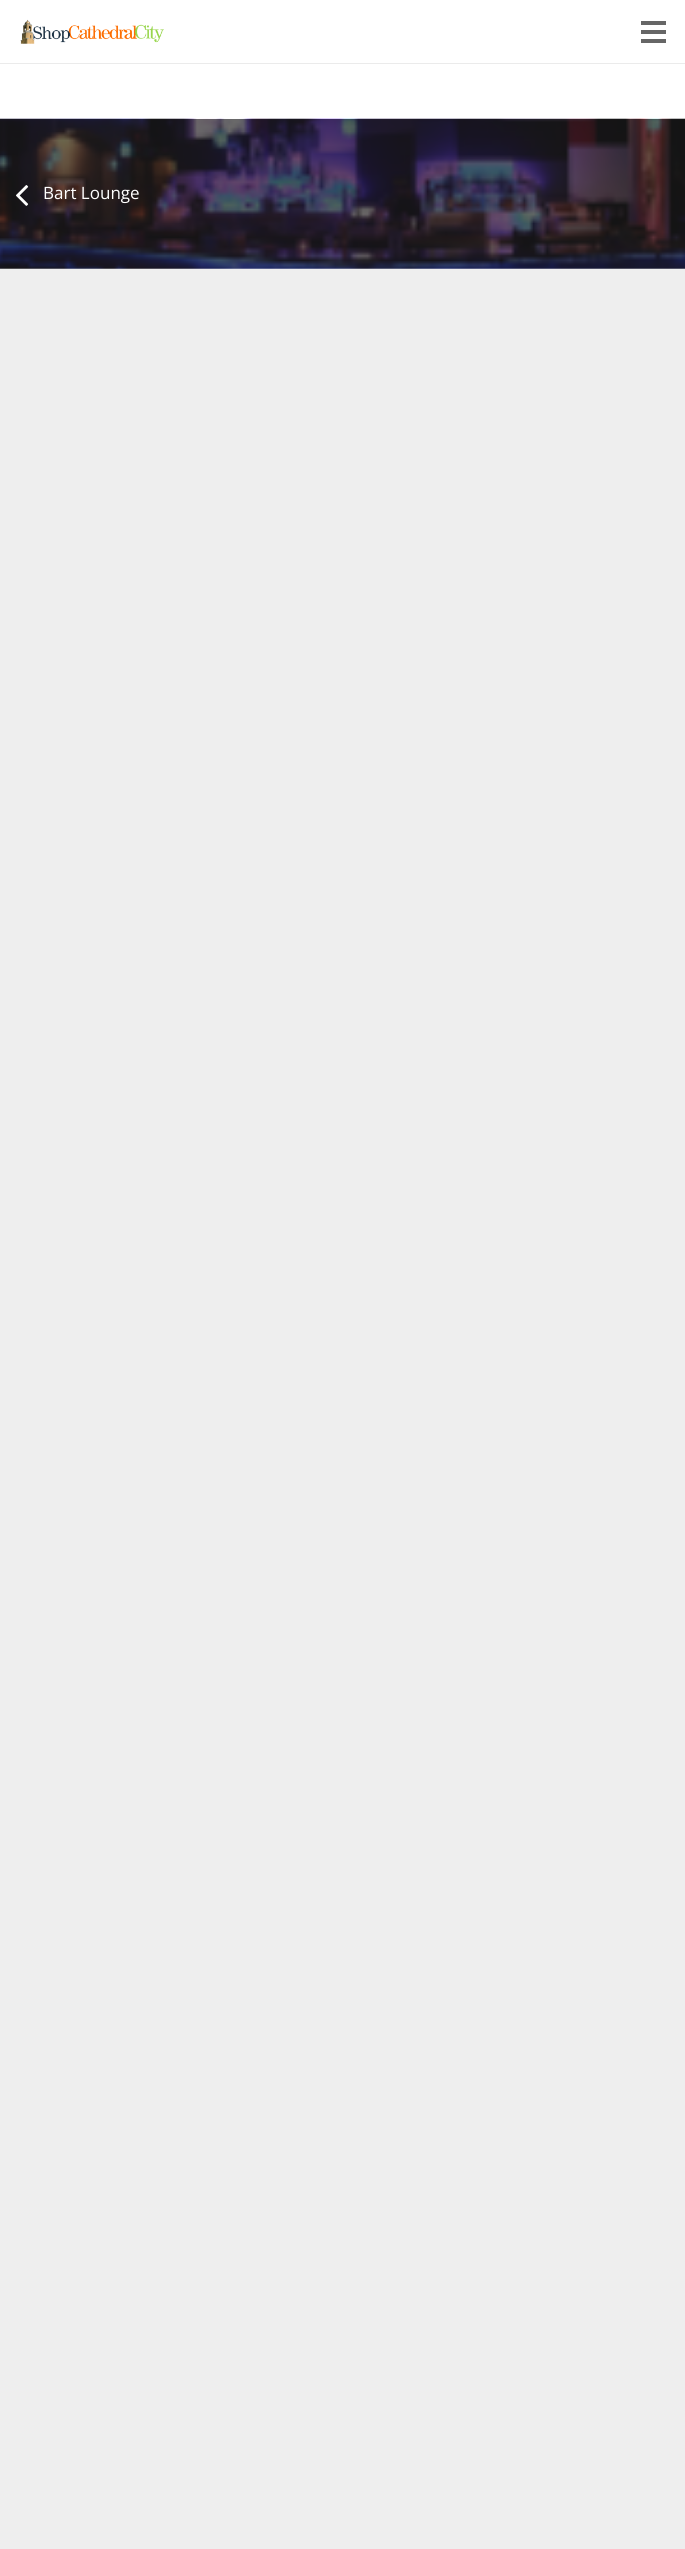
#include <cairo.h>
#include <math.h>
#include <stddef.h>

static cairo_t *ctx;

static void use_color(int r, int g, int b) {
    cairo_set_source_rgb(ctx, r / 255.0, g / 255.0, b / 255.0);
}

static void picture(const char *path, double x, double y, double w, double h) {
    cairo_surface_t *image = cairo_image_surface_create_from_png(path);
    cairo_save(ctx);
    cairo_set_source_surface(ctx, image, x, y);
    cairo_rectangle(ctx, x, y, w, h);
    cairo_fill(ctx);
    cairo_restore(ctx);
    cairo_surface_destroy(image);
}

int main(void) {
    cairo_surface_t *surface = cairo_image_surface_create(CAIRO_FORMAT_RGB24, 685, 2549);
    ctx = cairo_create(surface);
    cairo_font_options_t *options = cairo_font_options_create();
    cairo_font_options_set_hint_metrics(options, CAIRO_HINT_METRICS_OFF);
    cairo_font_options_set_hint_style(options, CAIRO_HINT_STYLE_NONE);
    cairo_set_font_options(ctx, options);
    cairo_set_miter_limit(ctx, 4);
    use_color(238, 238, 238);
    cairo_paint(ctx);
    use_color(255, 255, 255);
    cairo_rectangle(ctx, 0, 64, 685, 205);
    cairo_fill(ctx);
    use_color(235, 235, 235);
    cairo_rectangle(ctx, 0, 63, 685, 1);
    cairo_fill(ctx);
    use_color(255, 255, 255);
    cairo_rectangle(ctx, 0, 0, 685, 63);
    cairo_fill(ctx);
    picture("img1.png", 20, 19, 144, 25);
    use_color(102, 102, 102);
    cairo_rectangle(ctx, 641, 30, 25, 4);
    cairo_fill(ctx);
    cairo_rectangle(ctx, 641, 21, 25, 4);
    cairo_fill(ctx);
    cairo_rectangle(ctx, 641, 39, 25, 4);
    cairo_fill(ctx);
    picture("img2.png", 0, 118, 685, 151);
    picture("img3.png", 16, 185, 13, 21);
    cairo_select_font_face(ctx, "Open Sans", CAIRO_FONT_SLANT_NORMAL, CAIRO_FONT_WEIGHT_NORMAL);
    cairo_set_font_size(ctx, 17);
    use_color(255, 255, 255);
    cairo_move_to(ctx, 43, 199);
    cairo_show_text(ctx, "Bart Lounge");
    cairo_surface_write_to_png(surface, "result.png");
    cairo_font_options_destroy(options);
    cairo_destroy(ctx);
    cairo_surface_destroy(surface);
    return 0;
}
